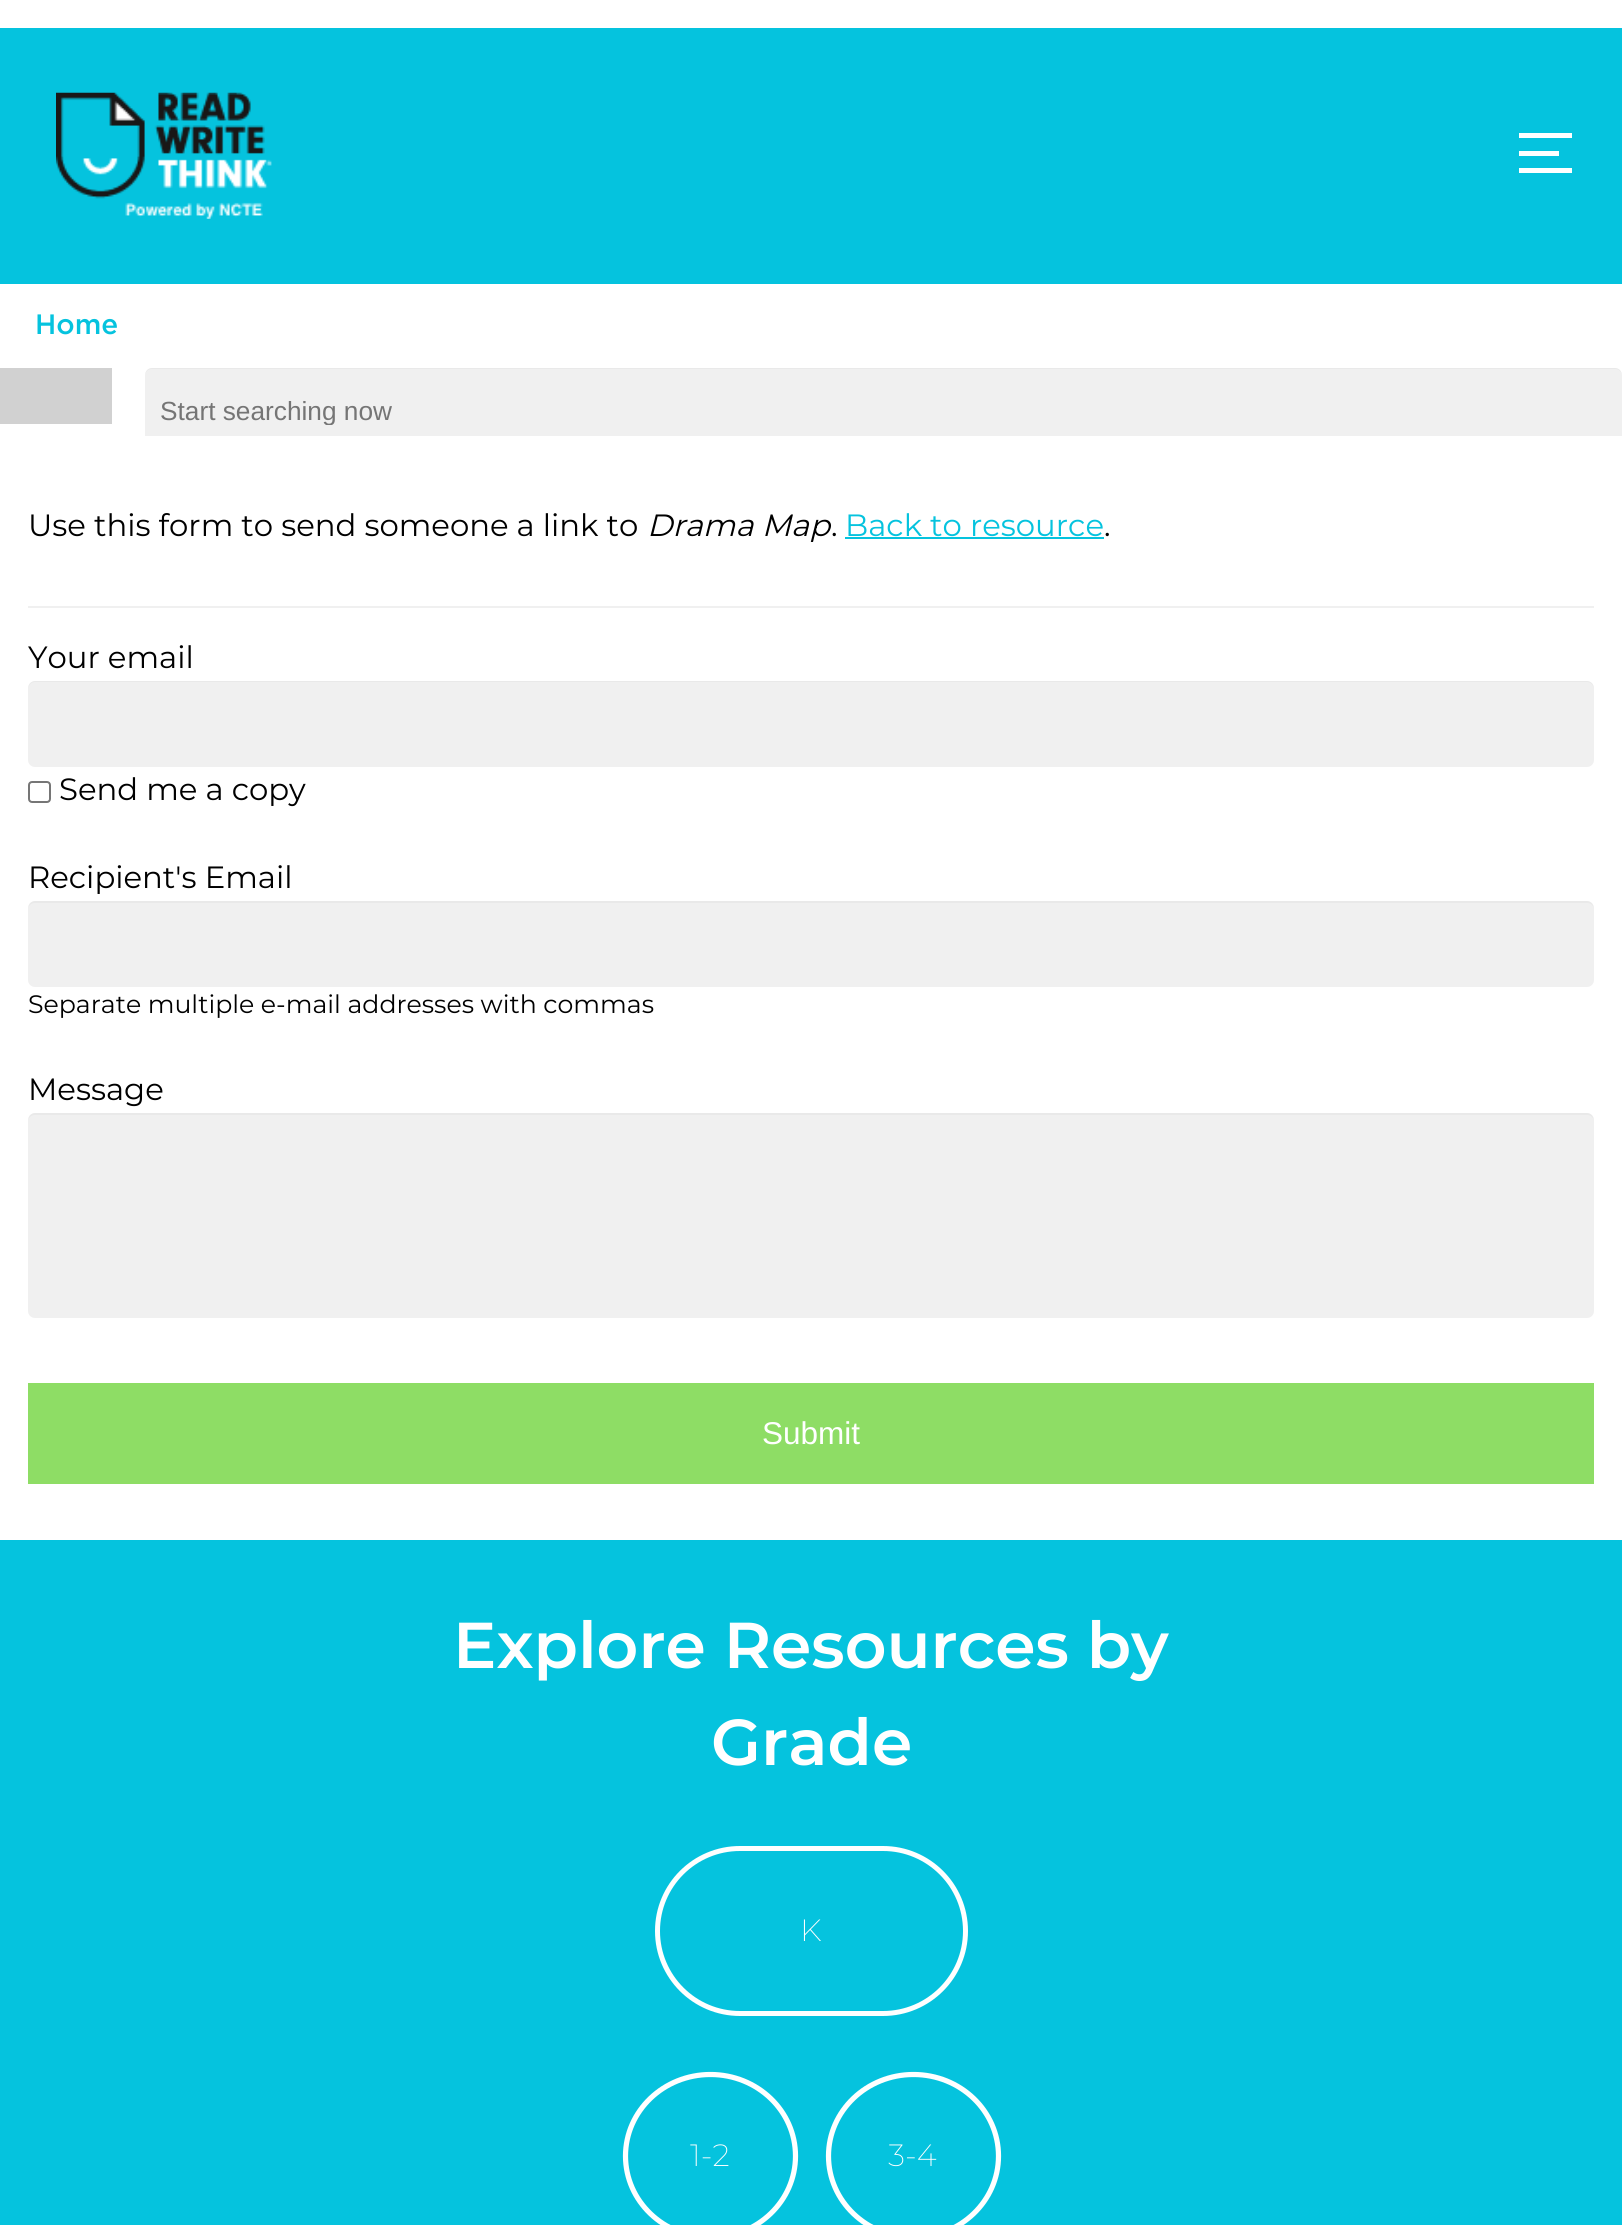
#include <cairo.h>
#include <math.h>
#include <stddef.h>

static cairo_t *ctx;

static void use_color(int r, int g, int b) {
    cairo_set_source_rgb(ctx, r / 255.0, g / 255.0, b / 255.0);
}

static void round_rect(double x, double y, double w, double h, double r) {
    cairo_new_sub_path(ctx);
    cairo_arc(ctx, x + w - r, y + h - r, r, 0, M_PI / 2);
    cairo_arc(ctx, x + r, y + h - r, r, M_PI / 2, M_PI);
    cairo_arc(ctx, x + r, y + r, r, M_PI, 1.5 * M_PI);
    cairo_arc(ctx, x + w - r, y + r, r, 1.5 * M_PI, 2 * M_PI);
    cairo_close_path(ctx);
}

static void picture(const char *path, double x, double y, double w, double h) {
    cairo_surface_t *image = cairo_image_surface_create_from_png(path);
    cairo_save(ctx);
    cairo_set_source_surface(ctx, image, x, y);
    cairo_rectangle(ctx, x, y, w, h);
    cairo_fill(ctx);
    cairo_restore(ctx);
    cairo_surface_destroy(image);
}

int main(void) {
    cairo_surface_t *surface = cairo_image_surface_create(CAIRO_FORMAT_RGB24, 1622, 2225);
    ctx = cairo_create(surface);
    cairo_font_options_t *options = cairo_font_options_create();
    cairo_font_options_set_hint_metrics(options, CAIRO_HINT_METRICS_OFF);
    cairo_font_options_set_hint_style(options, CAIRO_HINT_STYLE_NONE);
    cairo_set_font_options(ctx, options);
    cairo_set_miter_limit(ctx, 4);
    use_color(255, 255, 255);
    cairo_paint(ctx);
    use_color(5, 195, 222);
    cairo_rectangle(ctx, 0, 28, 1622, 256);
    cairo_fill(ctx);
    picture("img1.png", 56, 92, 216, 127);
    use_color(255, 255, 255);
    cairo_rectangle(ctx, 1519, 133, 53, 5);
    cairo_fill(ctx);
    cairo_rectangle(ctx, 1519, 151, 40, 5);
    cairo_fill(ctx);
    cairo_rectangle(ctx, 1519, 168, 53, 5);
    cairo_fill(ctx);
    cairo_select_font_face(ctx, "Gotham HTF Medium", CAIRO_FONT_SLANT_NORMAL, CAIRO_FONT_WEIGHT_NORMAL);
    cairo_set_font_size(ctx, 28);
    use_color(5, 195, 222);
    cairo_move_to(ctx, 35, 334);
    cairo_show_text(ctx, "Home");
    use_color(240, 240, 240);
    round_rect(145, 368, 1477, 85, 7);
    cairo_fill(ctx);
    cairo_set_source_rgba(ctx, 0, 0, 0, 0.03);
    cairo_new_path(ctx);
    cairo_move_to(ctx, 152, 369);
    cairo_line_to(ctx, 1615, 369);
    cairo_curve_to(ctx, 1619, 369, 1622, 372, 1622, 376);
    cairo_curve_to(ctx, 1622, 372, 1620, 368, 1615, 368);
    cairo_line_to(ctx, 152, 368);
    cairo_curve_to(ctx, 147, 368, 145, 372, 145, 376);
    cairo_curve_to(ctx, 145, 372, 148, 369, 152, 369);
    cairo_close_path(ctx);
    cairo_fill(ctx);
    cairo_save(ctx);
    cairo_rectangle(ctx, 159, 396, 1449, 29);
    cairo_clip(ctx);
    cairo_select_font_face(ctx, "Liberation Sans", CAIRO_FONT_SLANT_NORMAL, CAIRO_FONT_WEIGHT_NORMAL);
    cairo_set_font_size(ctx, 26.25);
    use_color(117, 117, 117);
    cairo_move_to(ctx, 160, 420);
    cairo_show_text(ctx, "Start searching now");
    cairo_restore(ctx);
    use_color(209, 209, 209);
    cairo_rectangle(ctx, 0, 368, 112, 56);
    cairo_fill(ctx);
    use_color(255, 255, 255);
    cairo_rectangle(ctx, 145, 436, 1477, 17);
    cairo_fill(ctx);
    use_color(240, 240, 240);
    cairo_rectangle(ctx, 28, 606, 1566, 2);
    cairo_fill(ctx);
    cairo_select_font_face(ctx, "Montserrat", CAIRO_FONT_SLANT_NORMAL, CAIRO_FONT_WEIGHT_NORMAL);
    cairo_set_font_size(ctx, 30.75);
    use_color(0, 0, 0);
    cairo_move_to(ctx, 28, 536);
    cairo_show_text(ctx, "Use this form to send someone a link to");
    cairo_select_font_face(ctx, "Montserrat", CAIRO_FONT_SLANT_ITALIC, CAIRO_FONT_WEIGHT_NORMAL);
    cairo_move_to(ctx, 647, 536);
    cairo_show_text(ctx, "Drama Map");
    cairo_select_font_face(ctx, "Montserrat", CAIRO_FONT_SLANT_NORMAL, CAIRO_FONT_WEIGHT_NORMAL);
    cairo_move_to(ctx, 831, 536);
    cairo_show_text(ctx, ".");
    use_color(5, 195, 222);
    cairo_move_to(ctx, 845, 536);
    cairo_show_text(ctx, "Back to resource");
    cairo_rectangle(ctx, 845, 537, 259, 2);
    cairo_fill(ctx);
    use_color(0, 0, 0);
    cairo_move_to(ctx, 1104, 536);
    cairo_show_text(ctx, ".");
    cairo_move_to(ctx, 28, 668);
    cairo_show_text(ctx, "Your email");
    use_color(240, 240, 240);
    round_rect(28, 681, 1566, 86, 7);
    cairo_fill(ctx);
    cairo_set_source_rgba(ctx, 0, 0, 0, 0.03);
    cairo_new_path(ctx);
    cairo_move_to(ctx, 35, 682);
    cairo_line_to(ctx, 1587, 682);
    cairo_curve_to(ctx, 1591, 682, 1594, 686, 1594, 690);
    cairo_curve_to(ctx, 1594, 686, 1592, 681, 1587, 681);
    cairo_line_to(ctx, 35, 681);
    cairo_curve_to(ctx, 30, 681, 28, 686, 28, 690);
    cairo_curve_to(ctx, 28, 686, 31, 682, 35, 682);
    cairo_close_path(ctx);
    cairo_fill(ctx);
    round_rect(29, 782, 21, 20, 3);
    use_color(118, 118, 118);
    cairo_stroke(ctx);
    use_color(0, 0, 0);
    cairo_move_to(ctx, 59, 800);
    cairo_show_text(ctx, "Send me a copy");
    cairo_move_to(ctx, 28, 888);
    cairo_show_text(ctx, "Recipient's Email");
    use_color(240, 240, 240);
    round_rect(28, 901, 1566, 86, 7);
    cairo_fill(ctx);
    cairo_set_source_rgba(ctx, 0, 0, 0, 0.03);
    cairo_new_path(ctx);
    cairo_move_to(ctx, 35, 903);
    cairo_line_to(ctx, 1587, 903);
    cairo_curve_to(ctx, 1591, 903, 1594, 906, 1594, 910);
    cairo_curve_to(ctx, 1594, 906, 1592, 901, 1587, 901);
    cairo_line_to(ctx, 35, 901);
    cairo_curve_to(ctx, 30, 901, 28, 906, 28, 910);
    cairo_curve_to(ctx, 28, 906, 31, 903, 35, 903);
    cairo_close_path(ctx);
    cairo_fill(ctx);
    cairo_set_font_size(ctx, 25.2);
    use_color(0, 0, 0);
    cairo_move_to(ctx, 28, 1013);
    cairo_show_text(ctx, "Separate multiple e-mail addresses with commas");
    cairo_set_font_size(ctx, 30.75);
    cairo_move_to(ctx, 28, 1100);
    cairo_show_text(ctx, "Message");
    use_color(240, 240, 240);
    round_rect(28, 1113, 1566, 205, 7);
    cairo_fill(ctx);
    cairo_set_source_rgba(ctx, 0, 0, 0, 0.03);
    cairo_new_path(ctx);
    cairo_move_to(ctx, 35, 1115);
    cairo_line_to(ctx, 1587, 1115);
    cairo_curve_to(ctx, 1591, 1115, 1594, 1118, 1594, 1122);
    cairo_curve_to(ctx, 1594, 1118, 1592, 1113, 1587, 1113);
    cairo_line_to(ctx, 35, 1113);
    cairo_curve_to(ctx, 30, 1113, 28, 1118, 28, 1122);
    cairo_curve_to(ctx, 28, 1118, 31, 1115, 35, 1115);
    cairo_close_path(ctx);
    cairo_fill(ctx);
    use_color(142, 221, 101);
    cairo_rectangle(ctx, 28, 1383, 1566, 101);
    cairo_fill(ctx);
    cairo_select_font_face(ctx, "Liberation Sans", CAIRO_FONT_SLANT_NORMAL, CAIRO_FONT_WEIGHT_NORMAL);
    cairo_set_font_size(ctx, 31.5);
    use_color(255, 255, 255);
    cairo_move_to(ctx, 762, 1444);
    cairo_show_text(ctx, "Submit");
    use_color(5, 195, 222);
    cairo_rectangle(ctx, 0, 1540, 1622, 685);
    cairo_fill(ctx);
    cairo_select_font_face(ctx, "Montserrat SemiBold", CAIRO_FONT_SLANT_NORMAL, CAIRO_FONT_WEIGHT_NORMAL);
    cairo_set_font_size(ctx, 64.75);
    use_color(255, 255, 255);
    cairo_move_to(ctx, 453, 1668);
    cairo_show_text(ctx, "Explore Resources by");
    cairo_move_to(ctx, 711, 1765);
    cairo_show_text(ctx, "Grade");
    round_rect(657.5, 1848.5, 308, 165, 82.5);
    cairo_set_line_width(ctx, 5);
    cairo_stroke(ctx);
    cairo_select_font_face(ctx, "Montserrat ExtraLight", CAIRO_FONT_SLANT_NORMAL, CAIRO_FONT_WEIGHT_NORMAL);
    cairo_set_font_size(ctx, 30.75);
    cairo_move_to(ctx, 800, 1941);
    cairo_show_text(ctx, "K");
    cairo_new_path(ctx);
    cairo_move_to(ctx, 710.5, 2074.5);
    cairo_curve_to(ctx, 757.5, 2074.5, 795.5, 2111, 795.5, 2156);
    cairo_curve_to(ctx, 795.5, 2201, 757.5, 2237.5, 710.5, 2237.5);
    cairo_curve_to(ctx, 663.5, 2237.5, 625.5, 2201, 625.5, 2156);
    cairo_curve_to(ctx, 625.5, 2111, 663.5, 2074.5, 710.5, 2074.5);
    cairo_close_path(ctx);
    cairo_set_line_width(ctx, 5.2);
    cairo_stroke(ctx);
    cairo_move_to(ctx, 690, 2166);
    cairo_show_text(ctx, "1-2");
    cairo_new_path(ctx);
    cairo_move_to(ctx, 913.5, 2074.5);
    cairo_curve_to(ctx, 960.5, 2074.5, 998.5, 2111, 998.5, 2156);
    cairo_curve_to(ctx, 998.5, 2201, 960.5, 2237.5, 913.5, 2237.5);
    cairo_curve_to(ctx, 866.5, 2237.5, 828.5, 2201, 828.5, 2156);
    cairo_curve_to(ctx, 828.5, 2111, 866.5, 2074.5, 913.5, 2074.5);
    cairo_close_path(ctx);
    cairo_stroke(ctx);
    cairo_move_to(ctx, 888, 2166);
    cairo_show_text(ctx, "3-4");
    cairo_surface_write_to_png(surface, "result.png");
    cairo_font_options_destroy(options);
    cairo_destroy(ctx);
    cairo_surface_destroy(surface);
    return 0;
}
